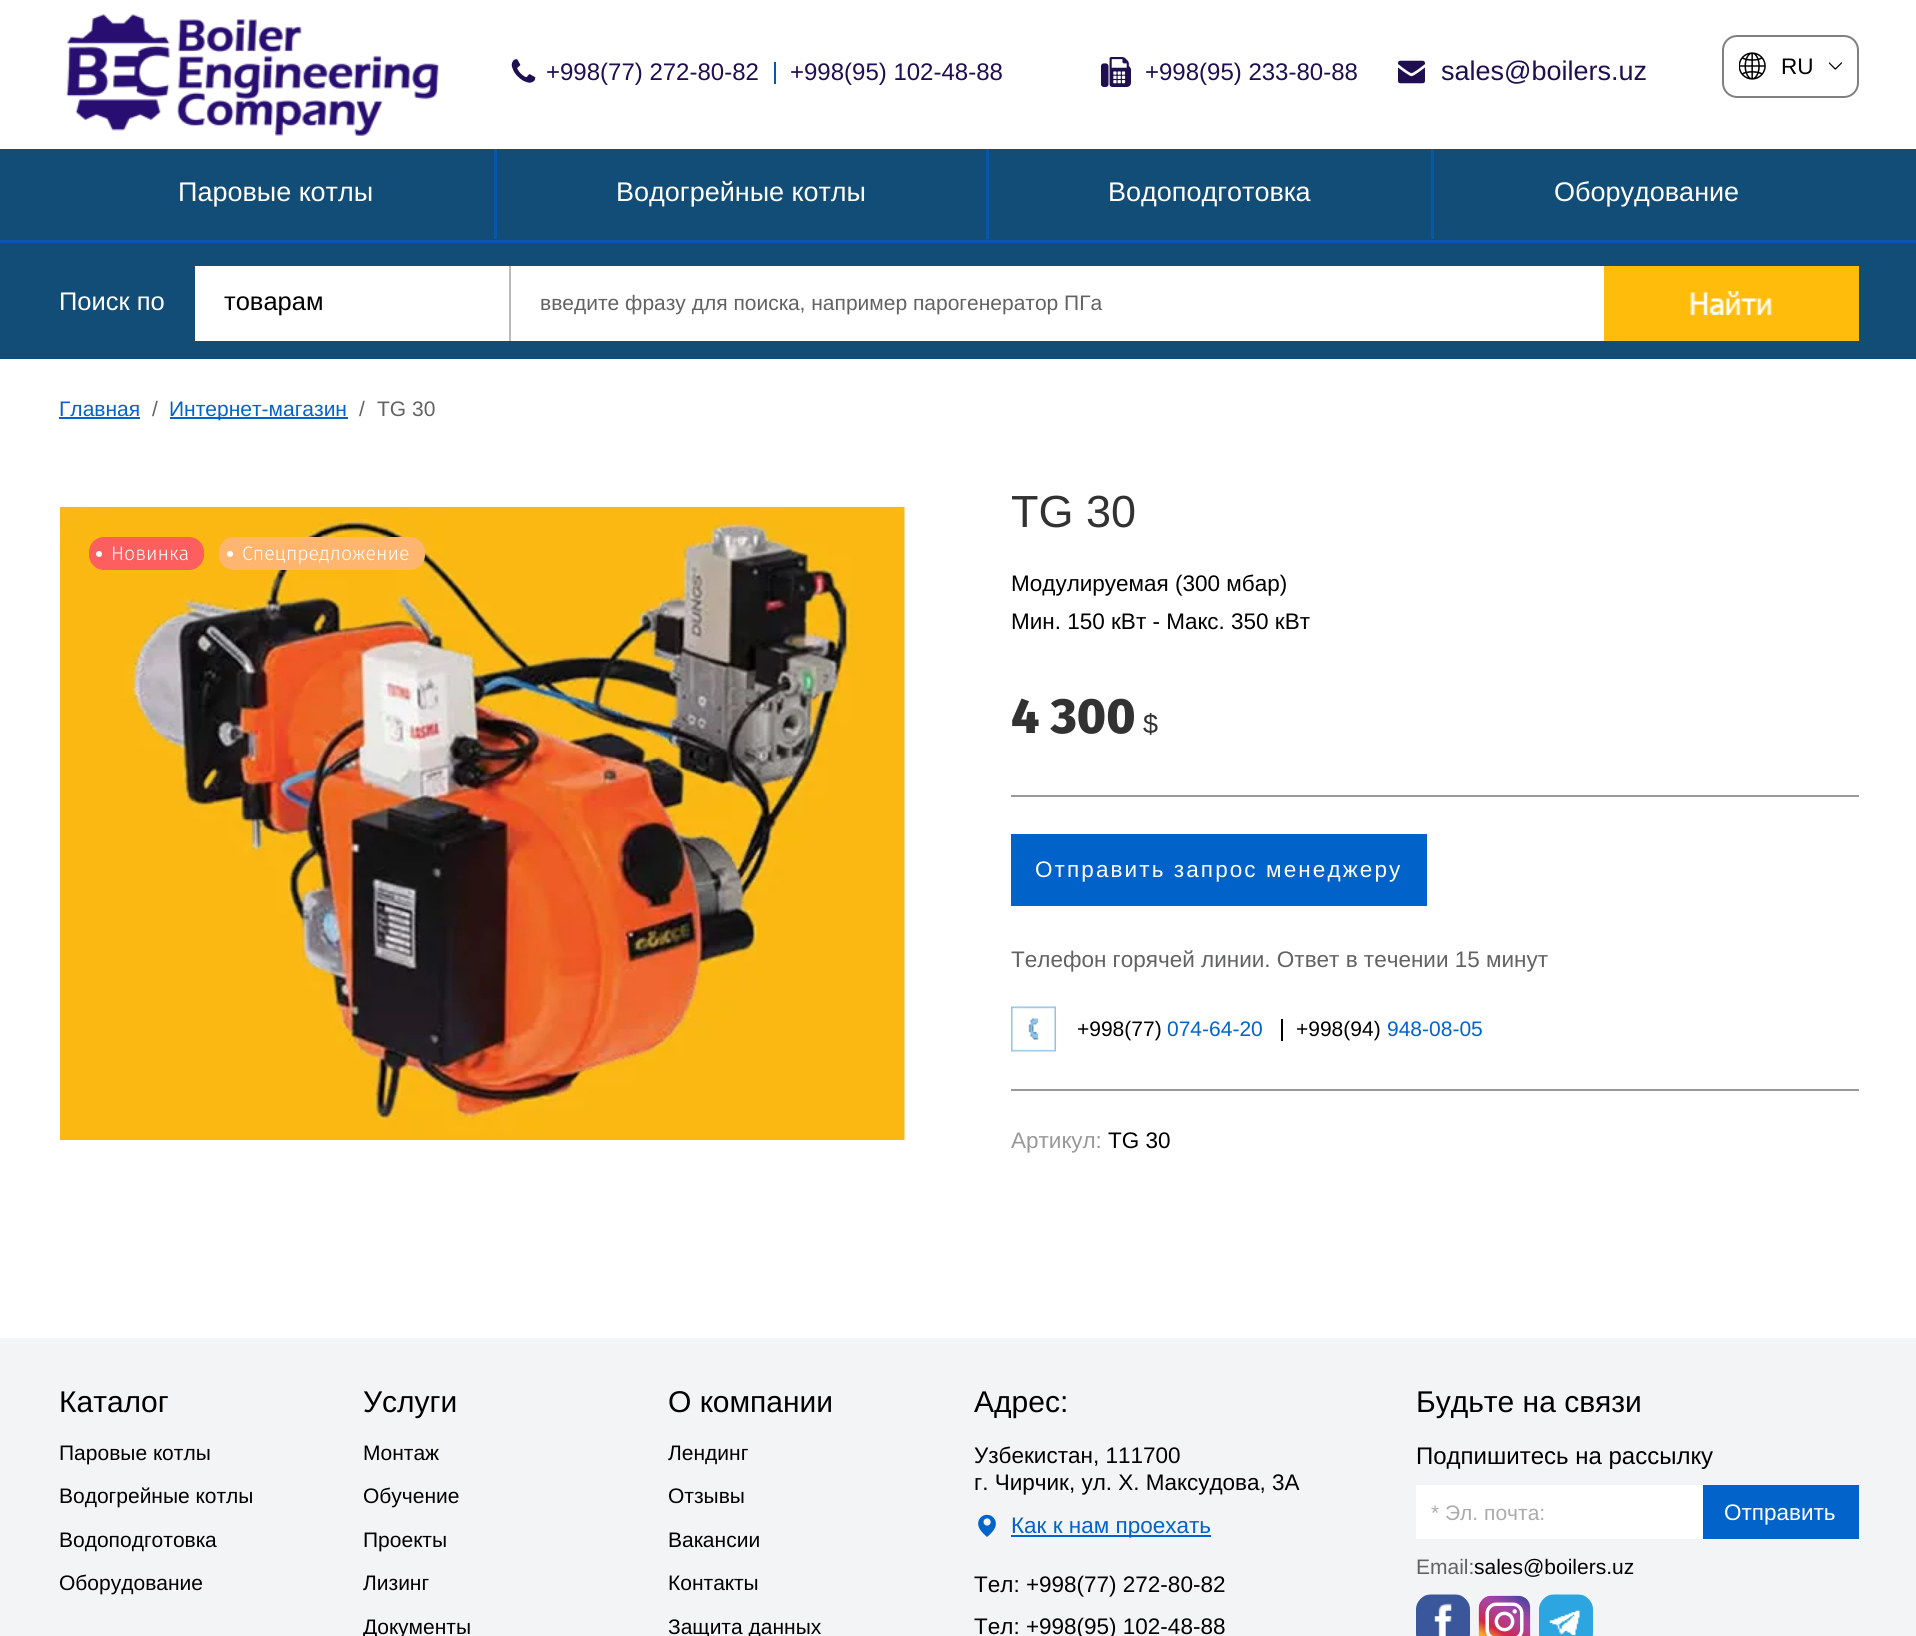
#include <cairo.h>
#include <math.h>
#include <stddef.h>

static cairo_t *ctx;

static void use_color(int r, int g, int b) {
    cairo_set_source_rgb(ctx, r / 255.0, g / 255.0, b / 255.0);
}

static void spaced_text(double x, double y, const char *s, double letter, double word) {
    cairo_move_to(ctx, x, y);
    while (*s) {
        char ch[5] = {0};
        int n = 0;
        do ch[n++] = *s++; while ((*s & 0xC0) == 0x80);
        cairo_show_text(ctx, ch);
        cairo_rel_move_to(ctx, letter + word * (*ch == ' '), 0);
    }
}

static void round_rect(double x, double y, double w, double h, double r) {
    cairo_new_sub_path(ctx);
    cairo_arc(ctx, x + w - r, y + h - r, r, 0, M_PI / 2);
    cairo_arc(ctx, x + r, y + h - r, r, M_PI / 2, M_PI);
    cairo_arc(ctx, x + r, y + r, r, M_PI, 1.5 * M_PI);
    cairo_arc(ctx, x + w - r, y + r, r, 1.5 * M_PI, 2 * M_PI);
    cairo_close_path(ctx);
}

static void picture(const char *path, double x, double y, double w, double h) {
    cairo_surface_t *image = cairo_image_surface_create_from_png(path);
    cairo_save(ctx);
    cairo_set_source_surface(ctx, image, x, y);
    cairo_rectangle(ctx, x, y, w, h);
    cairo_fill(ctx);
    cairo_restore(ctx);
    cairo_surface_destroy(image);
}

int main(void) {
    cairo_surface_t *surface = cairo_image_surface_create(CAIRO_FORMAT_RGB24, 1916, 1636);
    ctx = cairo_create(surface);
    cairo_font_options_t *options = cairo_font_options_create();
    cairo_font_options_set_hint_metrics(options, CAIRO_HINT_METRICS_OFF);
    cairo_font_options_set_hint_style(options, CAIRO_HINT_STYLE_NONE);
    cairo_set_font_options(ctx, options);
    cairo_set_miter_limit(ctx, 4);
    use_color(255, 255, 255);
    cairo_paint(ctx);
    picture("img1.png", 66, 14, 373, 122);
    picture("img2.png", 511, 59, 25, 24);
    cairo_select_font_face(ctx, "Liberation Sans", CAIRO_FONT_SLANT_NORMAL, CAIRO_FONT_WEIGHT_NORMAL);
    cairo_set_font_size(ctx, 24);
    use_color(31, 15, 80);
    cairo_move_to(ctx, 546, 80);
    cairo_show_text(ctx, "+998(77) 272-80-82");
    use_color(9, 87, 169);
    cairo_rectangle(ctx, 774, 62, 2, 22);
    cairo_fill(ctx);
    use_color(31, 15, 80);
    cairo_move_to(ctx, 790, 80);
    cairo_show_text(ctx, "+998(95) 102-48-88");
    picture("img3.png", 1101, 57, 30, 30);
    cairo_move_to(ctx, 1145, 80);
    cairo_show_text(ctx, "+998(95) 233-80-88");
    picture("img4.png", 1398, 60, 27, 24);
    cairo_set_font_size(ctx, 27);
    cairo_move_to(ctx, 1441, 80);
    cairo_show_text(ctx, "sales@boilers.uz");
    round_rect(1723, 36, 135, 61, 14);
    use_color(128, 128, 128);
    cairo_stroke(ctx);
    picture("img5.png", 1739, 52, 27, 28);
    cairo_set_font_size(ctx, 22.5);
    use_color(0, 0, 0);
    cairo_move_to(ctx, 1781, 74);
    cairo_show_text(ctx, "RU");
    picture("img6.png", 1829, 62, 13, 8);
    use_color(18, 77, 119);
    cairo_rectangle(ctx, 0, 149, 1916, 210);
    cairo_fill(ctx);
    use_color(9, 87, 169);
    cairo_rectangle(ctx, 0, 240, 1916, 3);
    cairo_fill(ctx);
    cairo_set_font_size(ctx, 27);
    use_color(255, 255, 255);
    cairo_move_to(ctx, 178, 201);
    cairo_show_text(ctx, "Паровые котлы");
    use_color(9, 87, 169);
    cairo_rectangle(ctx, 494, 149, 3, 90);
    cairo_fill(ctx);
    use_color(255, 255, 255);
    cairo_move_to(ctx, 616, 201);
    cairo_show_text(ctx, "Водогрейные котлы");
    use_color(9, 87, 169);
    cairo_rectangle(ctx, 986, 149, 3, 90);
    cairo_fill(ctx);
    use_color(255, 255, 255);
    cairo_move_to(ctx, 1108, 201);
    cairo_show_text(ctx, "Водоподготовка");
    use_color(9, 87, 169);
    cairo_rectangle(ctx, 1431, 149, 3, 90);
    cairo_fill(ctx);
    use_color(255, 255, 255);
    cairo_move_to(ctx, 1554, 201);
    cairo_show_text(ctx, "Оборудование");
    cairo_set_font_size(ctx, 25.5);
    cairo_move_to(ctx, 59, 310);
    cairo_show_text(ctx, "Поиск по");
    cairo_rectangle(ctx, 195, 266, 314, 75);
    cairo_fill(ctx);
    use_color(0, 0, 0);
    cairo_move_to(ctx, 224, 310);
    cairo_show_text(ctx, "товарам");
    use_color(255, 255, 255);
    cairo_rectangle(ctx, 511, 266, 1093, 75);
    cairo_fill(ctx);
    use_color(187, 187, 187);
    cairo_rectangle(ctx, 509, 266, 2, 75);
    cairo_fill(ctx);
    cairo_set_font_size(ctx, 21);
    use_color(97, 98, 98);
    cairo_move_to(ctx, 540, 310);
    cairo_show_text(ctx, "введите фразу для поиска, например парогенератор ПГа");
    use_color(255, 188, 11);
    cairo_rectangle(ctx, 1604, 266, 255, 75);
    cairo_fill(ctx);
    picture("img7.png", 1690, 291, 82, 24);
    use_color(2, 99, 202);
    cairo_move_to(ctx, 59, 416);
    cairo_show_text(ctx, "Главная");
    cairo_rectangle(ctx, 59, 417, 81, 2);
    cairo_fill(ctx);
    use_color(97, 98, 98);
    cairo_move_to(ctx, 152, 416);
    cairo_show_text(ctx, "/");
    use_color(2, 99, 202);
    cairo_rectangle(ctx, 170, 417, 178, 2);
    cairo_fill(ctx);
    cairo_move_to(ctx, 169, 416);
    cairo_show_text(ctx, "Интернет-магазин");
    use_color(97, 98, 98);
    cairo_move_to(ctx, 359, 416);
    cairo_show_text(ctx, "/");
    cairo_move_to(ctx, 377, 416);
    cairo_show_text(ctx, "TG 30");
    picture("img8.png", 60, 507, 845, 633);
    use_color(253, 95, 95);
    round_rect(89, 537, 115, 33, 15);
    cairo_fill(ctx);
    use_color(255, 255, 255);
    cairo_arc(ctx, 99, 554, 3, 0, 2 * M_PI);
    cairo_fill(ctx);
    cairo_select_font_face(ctx, "Fira Sans Light", CAIRO_FONT_SLANT_NORMAL, CAIRO_FONT_WEIGHT_NORMAL);
    cairo_set_font_size(ctx, 19.5);
    cairo_move_to(ctx, 111, 560);
    cairo_show_text(ctx, "Новинка");
    use_color(253, 181, 111);
    round_rect(219, 537, 206, 33, 15);
    cairo_fill(ctx);
    use_color(255, 255, 255);
    cairo_arc(ctx, 230, 554, 3, 0, 2 * M_PI);
    cairo_fill(ctx);
    cairo_move_to(ctx, 242, 560);
    cairo_show_text(ctx, "Спецпредложение");
    cairo_select_font_face(ctx, "Liberation Sans", CAIRO_FONT_SLANT_NORMAL, CAIRO_FONT_WEIGHT_NORMAL);
    cairo_set_font_size(ctx, 45);
    use_color(50, 50, 50);
    cairo_move_to(ctx, 1011, 527);
    cairo_show_text(ctx, "TG 30");
    cairo_set_font_size(ctx, 22.5);
    use_color(0, 0, 0);
    cairo_move_to(ctx, 1011, 591);
    cairo_show_text(ctx, "Модулируемая (300 мбар)");
    cairo_move_to(ctx, 1011, 629);
    cairo_show_text(ctx, "Мин. 150 кВт - Макс. 350 кВт");
    cairo_select_font_face(ctx, "Fira Sans ExtraBold", CAIRO_FONT_SLANT_NORMAL, CAIRO_FONT_WEIGHT_NORMAL);
    cairo_set_font_size(ctx, 49.5);
    use_color(50, 50, 50);
    cairo_move_to(ctx, 1011, 733);
    cairo_show_text(ctx, "4 300");
    cairo_select_font_face(ctx, "Liberation Sans", CAIRO_FONT_SLANT_NORMAL, CAIRO_FONT_WEIGHT_NORMAL);
    cairo_set_font_size(ctx, 27);
    cairo_move_to(ctx, 1143, 733);
    cairo_show_text(ctx, "$");
    use_color(153, 153, 153);
    cairo_rectangle(ctx, 1011, 795, 848, 2);
    cairo_fill(ctx);
    cairo_rectangle(ctx, 1011, 1089, 848, 2);
    cairo_fill(ctx);
    use_color(1, 99, 202);
    cairo_rectangle(ctx, 1011, 834, 416, 72);
    cairo_fill(ctx);
    cairo_set_font_size(ctx, 22.5);
    use_color(255, 255, 255);
    spaced_text(1035, 877, "Отправить запрос менеджеру", 2.1, 0);
    use_color(97, 98, 98);
    cairo_move_to(ctx, 1011, 967);
    cairo_show_text(ctx, "Телефон горячей линии. Ответ в течении 15 минут");
    picture("img9.png", 1011, 1006, 45, 46);
    cairo_set_font_size(ctx, 21);
    use_color(0, 0, 0);
    cairo_move_to(ctx, 1077, 1036);
    cairo_show_text(ctx, "+998(77)");
    use_color(2, 99, 202);
    cairo_move_to(ctx, 1167, 1036);
    cairo_show_text(ctx, "074-64-20");
    use_color(0, 0, 0);
    cairo_rectangle(ctx, 1281, 1019, 2, 22);
    cairo_fill(ctx);
    cairo_move_to(ctx, 1296, 1036);
    cairo_show_text(ctx, "+998(94)");
    use_color(2, 99, 202);
    cairo_move_to(ctx, 1387, 1036);
    cairo_show_text(ctx, "948-08-05");
    cairo_set_font_size(ctx, 22.5);
    use_color(153, 153, 153);
    cairo_move_to(ctx, 1011, 1148);
    cairo_show_text(ctx, "Артикул:");
    use_color(0, 0, 0);
    cairo_move_to(ctx, 1108, 1148);
    cairo_show_text(ctx, "TG 30");
    use_color(243, 244, 246);
    cairo_rectangle(ctx, 0, 1338, 1916, 298);
    cairo_fill(ctx);
    cairo_set_font_size(ctx, 30);
    use_color(0, 0, 0);
    cairo_move_to(ctx, 59, 1412);
    cairo_show_text(ctx, "Каталог");
    cairo_set_font_size(ctx, 21);
    cairo_move_to(ctx, 59, 1460);
    cairo_show_text(ctx, "Паровые котлы");
    cairo_move_to(ctx, 59, 1503);
    cairo_show_text(ctx, "Водогрейные котлы");
    cairo_move_to(ctx, 59, 1547);
    cairo_show_text(ctx, "Водоподготовка");
    cairo_move_to(ctx, 59, 1590);
    cairo_show_text(ctx, "Оборудование");
    cairo_set_font_size(ctx, 30);
    cairo_move_to(ctx, 363, 1412);
    cairo_show_text(ctx, "Услуги");
    cairo_set_font_size(ctx, 21);
    cairo_move_to(ctx, 363, 1460);
    cairo_show_text(ctx, "Монтаж");
    cairo_move_to(ctx, 363, 1503);
    cairo_show_text(ctx, "Обучение");
    cairo_move_to(ctx, 363, 1547);
    cairo_show_text(ctx, "Проекты");
    cairo_move_to(ctx, 363, 1590);
    cairo_show_text(ctx, "Лизинг");
    cairo_move_to(ctx, 363, 1634);
    cairo_show_text(ctx, "Документы");
    cairo_set_font_size(ctx, 30);
    cairo_move_to(ctx, 668, 1412);
    cairo_show_text(ctx, "О компании");
    cairo_set_font_size(ctx, 21);
    cairo_move_to(ctx, 668, 1460);
    cairo_show_text(ctx, "Лендинг");
    cairo_move_to(ctx, 668, 1503);
    cairo_show_text(ctx, "Отзывы");
    cairo_move_to(ctx, 668, 1547);
    cairo_show_text(ctx, "Вакансии");
    cairo_move_to(ctx, 668, 1590);
    cairo_show_text(ctx, "Контакты");
    cairo_move_to(ctx, 668, 1634);
    cairo_show_text(ctx, "Защита данных");
    cairo_set_font_size(ctx, 30);
    cairo_move_to(ctx, 974, 1412);
    cairo_show_text(ctx, "Адрес:");
    cairo_set_font_size(ctx, 22.5);
    cairo_move_to(ctx, 974, 1463);
    cairo_show_text(ctx, "Узбекистан, 111700");
    cairo_move_to(ctx, 974, 1490);
    cairo_show_text(ctx, "г. Чирчик, ул. Х. Максудова, 3А");
    picture("img10.png", 978, 1514, 18, 23);
    use_color(2, 99, 202);
    cairo_rectangle(ctx, 1011, 1535, 200, 2);
    cairo_fill(ctx);
    cairo_move_to(ctx, 1011, 1533);
    cairo_show_text(ctx, "Как к нам проехать");
    use_color(0, 0, 0);
    cairo_move_to(ctx, 974, 1592);
    cairo_show_text(ctx, "Тел: +998(77) 272-80-82");
    cairo_move_to(ctx, 974, 1634);
    cairo_show_text(ctx, "Тел: +998(95) 102-48-88");
    cairo_set_font_size(ctx, 30);
    cairo_move_to(ctx, 1416, 1412);
    cairo_show_text(ctx, "Будьте на связи");
    cairo_set_font_size(ctx, 24);
    cairo_move_to(ctx, 1416, 1464);
    cairo_show_text(ctx, "Подпишитесь на рассылку");
    use_color(255, 255, 255);
    cairo_rectangle(ctx, 1416, 1485, 287, 54);
    cairo_fill(ctx);
    cairo_set_font_size(ctx, 21);
    use_color(171, 171, 171);
    cairo_move_to(ctx, 1431, 1520);
    cairo_show_text(ctx, "* Эл. почта:");
    use_color(2, 99, 202);
    cairo_rectangle(ctx, 1703, 1485, 156, 54);
    cairo_fill(ctx);
    cairo_set_font_size(ctx, 22.5);
    use_color(255, 255, 255);
    cairo_move_to(ctx, 1724, 1520);
    cairo_show_text(ctx, "Отправить");
    cairo_set_font_size(ctx, 21);
    use_color(97, 98, 98);
    cairo_move_to(ctx, 1416, 1574);
    cairo_show_text(ctx, "Email:");
    use_color(0, 0, 0);
    cairo_move_to(ctx, 1474, 1574);
    cairo_show_text(ctx, "sales@boilers.uz");
    picture("img11.png", 1415, 1594, 55, 42);
    picture("img12.png", 1478, 1595, 53, 41);
    picture("img13.png", 1538, 1594, 55, 42);
    cairo_surface_write_to_png(surface, "result.png");
    cairo_font_options_destroy(options);
    cairo_destroy(ctx);
    cairo_surface_destroy(surface);
    return 0;
}
